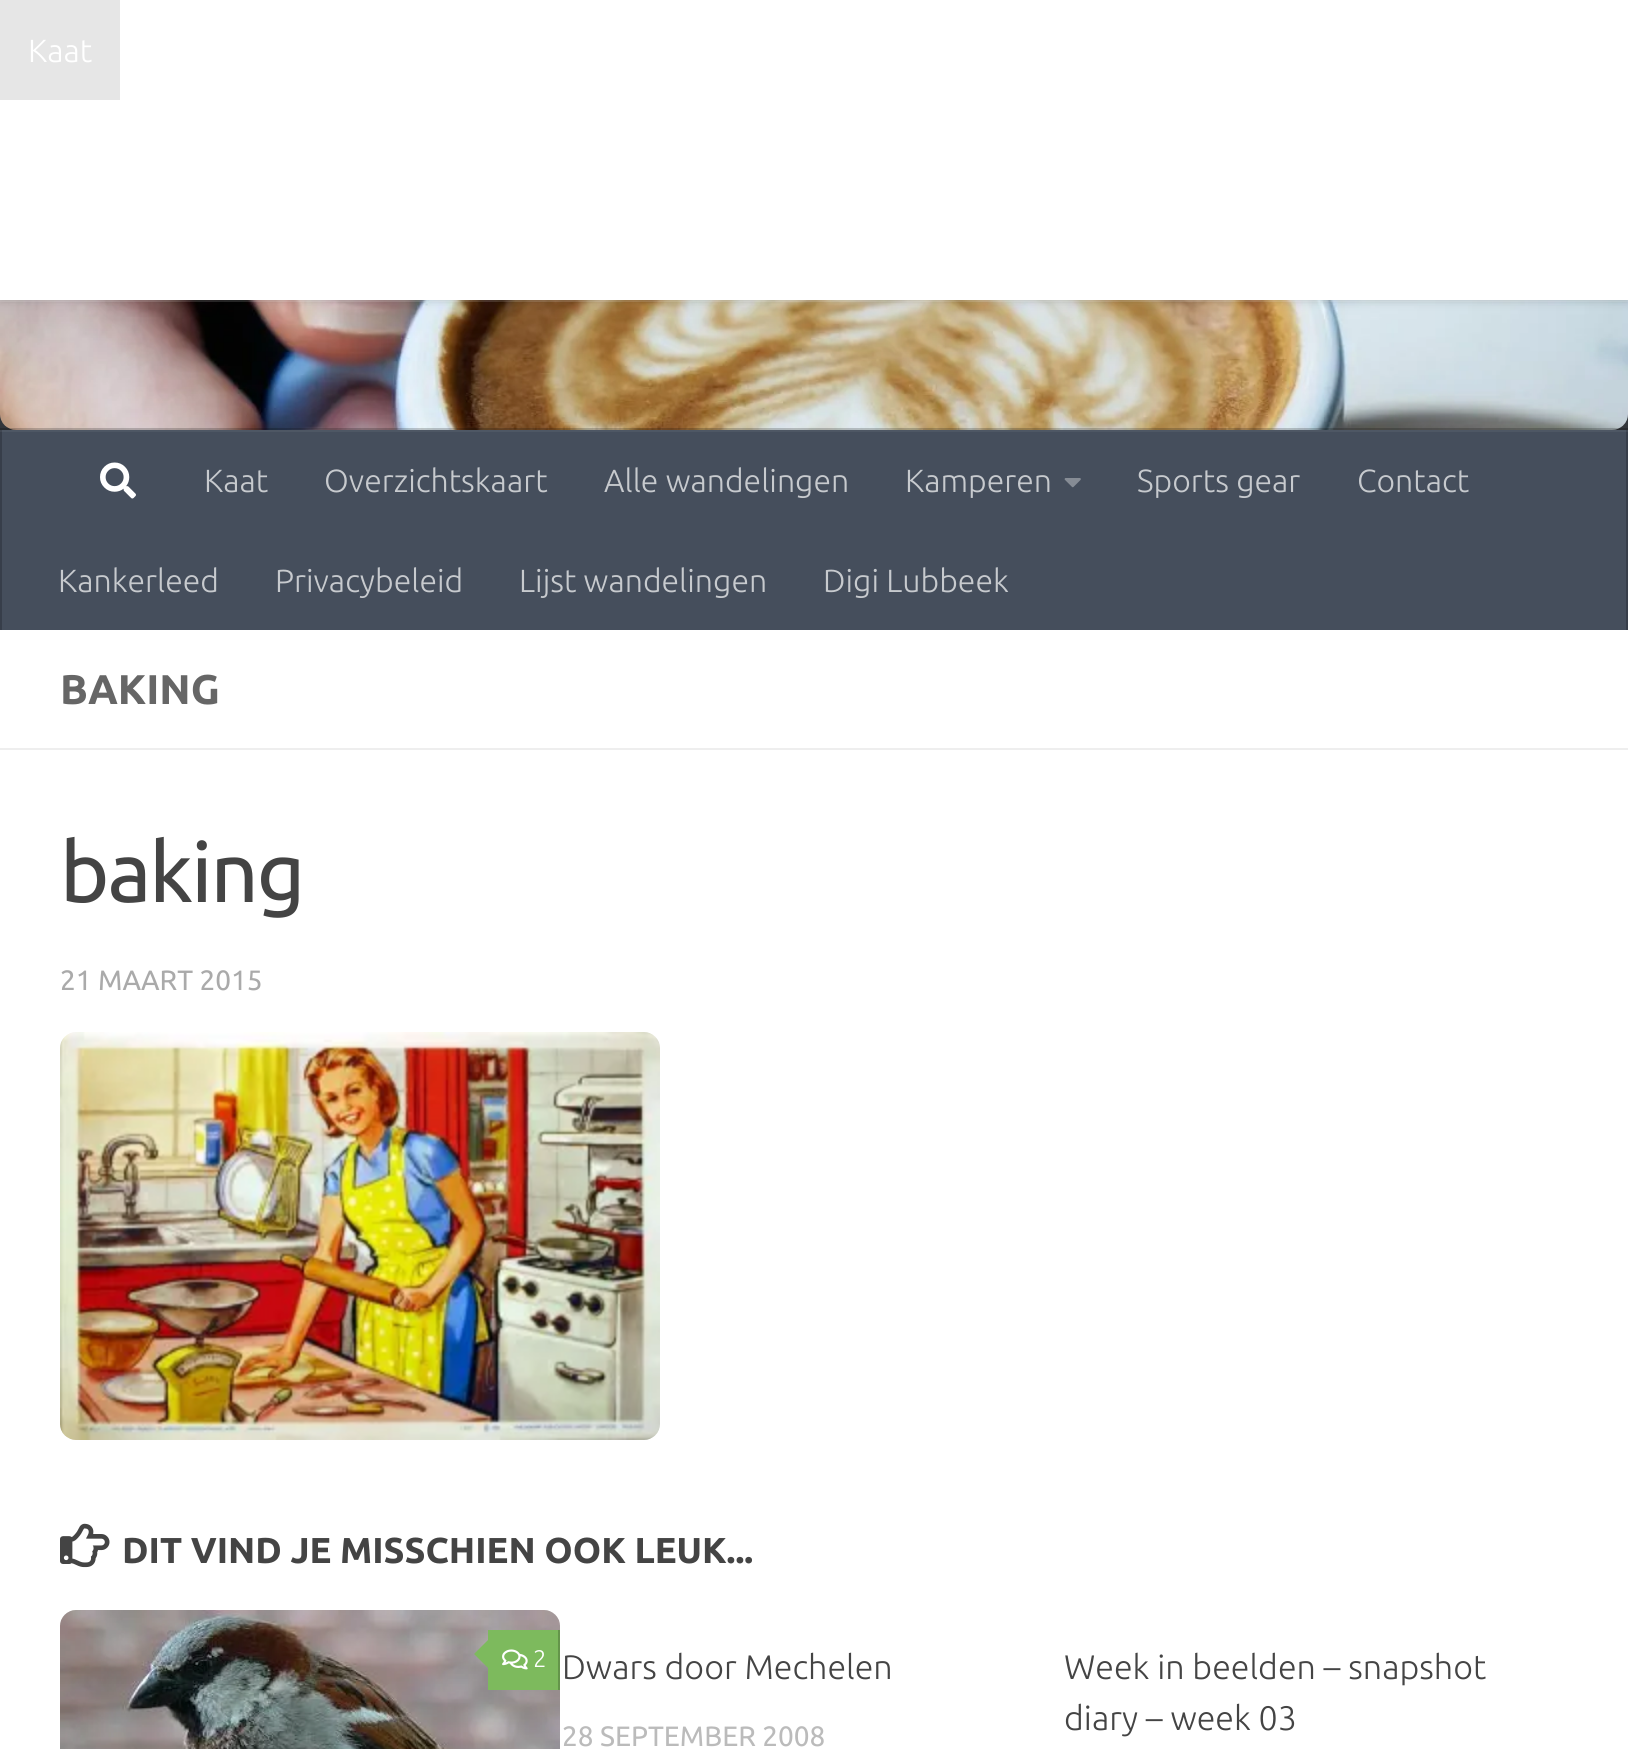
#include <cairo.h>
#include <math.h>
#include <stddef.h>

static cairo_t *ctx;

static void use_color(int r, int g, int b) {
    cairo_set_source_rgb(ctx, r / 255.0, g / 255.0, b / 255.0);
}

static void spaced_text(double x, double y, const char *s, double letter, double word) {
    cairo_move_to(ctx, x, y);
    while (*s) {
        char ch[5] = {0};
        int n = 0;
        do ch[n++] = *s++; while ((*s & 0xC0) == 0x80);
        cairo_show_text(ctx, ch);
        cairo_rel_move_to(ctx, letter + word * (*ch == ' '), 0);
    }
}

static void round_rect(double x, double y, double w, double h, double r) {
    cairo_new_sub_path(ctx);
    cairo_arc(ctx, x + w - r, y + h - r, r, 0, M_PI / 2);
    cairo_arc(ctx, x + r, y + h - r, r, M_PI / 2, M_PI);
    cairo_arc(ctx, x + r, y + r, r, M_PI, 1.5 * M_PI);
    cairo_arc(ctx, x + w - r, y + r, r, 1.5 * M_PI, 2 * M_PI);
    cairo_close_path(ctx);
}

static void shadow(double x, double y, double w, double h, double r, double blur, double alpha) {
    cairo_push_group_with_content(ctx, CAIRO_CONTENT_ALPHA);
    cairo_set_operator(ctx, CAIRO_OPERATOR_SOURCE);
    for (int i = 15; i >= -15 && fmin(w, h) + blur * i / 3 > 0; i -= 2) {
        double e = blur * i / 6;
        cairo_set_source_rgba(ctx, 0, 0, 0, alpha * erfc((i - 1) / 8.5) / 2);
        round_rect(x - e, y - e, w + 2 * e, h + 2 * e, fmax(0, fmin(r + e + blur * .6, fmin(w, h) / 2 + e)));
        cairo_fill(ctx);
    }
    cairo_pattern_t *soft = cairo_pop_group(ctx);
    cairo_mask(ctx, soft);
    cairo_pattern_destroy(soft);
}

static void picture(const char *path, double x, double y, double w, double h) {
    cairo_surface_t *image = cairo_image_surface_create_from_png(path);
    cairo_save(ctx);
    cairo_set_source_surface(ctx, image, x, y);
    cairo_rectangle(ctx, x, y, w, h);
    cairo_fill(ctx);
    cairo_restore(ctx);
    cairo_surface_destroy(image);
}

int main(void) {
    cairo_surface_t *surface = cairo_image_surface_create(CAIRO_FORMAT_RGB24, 1628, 1749);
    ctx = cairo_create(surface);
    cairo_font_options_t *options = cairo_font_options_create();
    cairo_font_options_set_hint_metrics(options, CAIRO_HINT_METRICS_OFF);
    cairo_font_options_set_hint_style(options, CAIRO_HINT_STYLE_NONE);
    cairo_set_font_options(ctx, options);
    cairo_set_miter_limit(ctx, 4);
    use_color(51, 54, 59);
    cairo_paint(ctx);
    picture("img1.png", 0, 300, 1628, 130);
    cairo_set_source_rgba(ctx, 1, 1, 1, 0.15);
    cairo_rectangle(ctx, 0, 300, 1628, 2);
    cairo_fill(ctx);
    use_color(0, 0, 0);
    shadow(0, 0, 1628, 300, 0, 5, 0.2);
    use_color(255, 255, 255);
    cairo_rectangle(ctx, 0, 0, 1628, 300);
    cairo_fill(ctx);
    use_color(230, 230, 230);
    cairo_rectangle(ctx, 0, 0, 120, 100);
    cairo_fill(ctx);
    cairo_select_font_face(ctx, "Ubuntu Light", CAIRO_FONT_SLANT_NORMAL, CAIRO_FONT_WEIGHT_NORMAL);
    cairo_set_font_size(ctx, 32);
    use_color(255, 255, 255);
    cairo_move_to(ctx, 28, 62);
    cairo_show_text(ctx, "Kaat");
    cairo_set_source_rgba(ctx, 0, 0, 0, 0.2);
    cairo_rectangle(ctx, 0, 428, 1628, 2);
    cairo_fill(ctx);
    use_color(69, 78, 92);
    cairo_rectangle(ctx, 2, 432, 1624, 198);
    cairo_fill(ctx);
    use_color(78, 87, 100);
    cairo_rectangle(ctx, 0, 430, 1628, 2);
    cairo_fill(ctx);
    use_color(55, 62, 74);
    cairo_rectangle(ctx, 1626, 430, 2, 200);
    cairo_fill(ctx);
    use_color(65, 72, 83);
    cairo_rectangle(ctx, 1626, 430, 2, 2);
    cairo_fill(ctx);
    use_color(55, 62, 74);
    cairo_rectangle(ctx, 0, 430, 2, 200);
    cairo_fill(ctx);
    use_color(65, 72, 83);
    cairo_rectangle(ctx, 0, 430, 2, 2);
    cairo_fill(ctx);
    picture("img2.png", 100, 462, 36, 37);
    use_color(199, 202, 206);
    cairo_move_to(ctx, 204, 492);
    cairo_show_text(ctx, "Kaat");
    cairo_move_to(ctx, 324, 492);
    cairo_show_text(ctx, "Overzichtskaart");
    cairo_move_to(ctx, 604, 492);
    cairo_show_text(ctx, "Alle wandelingen");
    cairo_move_to(ctx, 905, 492);
    cairo_show_text(ctx, "Kamperen");
    picture("img3.png", 1064, 478, 17, 10);
    cairo_move_to(ctx, 1137, 492);
    cairo_show_text(ctx, "Sports gear");
    cairo_move_to(ctx, 1357, 492);
    cairo_show_text(ctx, "Contact");
    cairo_move_to(ctx, 58, 592);
    cairo_show_text(ctx, "Kankerleed");
    cairo_move_to(ctx, 275, 592);
    cairo_show_text(ctx, "Privacybeleid");
    cairo_move_to(ctx, 519, 592);
    cairo_show_text(ctx, "Lijst wandelingen");
    cairo_move_to(ctx, 823, 592);
    cairo_show_text(ctx, "Digi Lubbeek");
    use_color(255, 255, 255);
    cairo_rectangle(ctx, 0, 630, 1628, 1119);
    cairo_fill(ctx);
    use_color(238, 238, 238);
    cairo_rectangle(ctx, 0, 748, 1628, 2);
    cairo_fill(ctx);
    cairo_select_font_face(ctx, "Ubuntu", CAIRO_FONT_SLANT_NORMAL, CAIRO_FONT_WEIGHT_BOLD);
    cairo_set_font_size(ctx, 41.5);
    use_color(102, 102, 102);
    cairo_move_to(ctx, 60, 704);
    cairo_show_text(ctx, "BAKING");
    cairo_select_font_face(ctx, "Ubuntu", CAIRO_FONT_SLANT_NORMAL, CAIRO_FONT_WEIGHT_NORMAL);
    cairo_set_font_size(ctx, 84);
    use_color(68, 68, 68);
    spaced_text(60, 902, "baking", -2, 0);
    cairo_set_font_size(ctx, 28);
    use_color(170, 170, 170);
    cairo_move_to(ctx, 60, 990);
    cairo_show_text(ctx, "21 MAART 2015");
    picture("img4.png", 60, 1032, 600, 408);
    picture("img5.png", 60, 1523, 50, 45);
    cairo_select_font_face(ctx, "Ubuntu", CAIRO_FONT_SLANT_NORMAL, CAIRO_FONT_WEIGHT_BOLD);
    cairo_set_font_size(ctx, 36);
    use_color(68, 68, 68);
    cairo_move_to(ctx, 122, 1563);
    cairo_show_text(ctx, "DIT VIND JE MISSCHIEN OOK LEUK...");
    picture("img6.png", 60, 1610, 500, 139);
    use_color(125, 186, 93);
    cairo_rectangle(ctx, 488, 1630, 70, 60);
    cairo_fill(ctx);
    use_color(100, 149, 74);
    cairo_rectangle(ctx, 558, 1630, 2, 60);
    cairo_fill(ctx);
    use_color(125, 186, 93);
    cairo_new_path(ctx);
    cairo_move_to(ctx, 492, 1636);
    cairo_line_to(ctx, 492, 1672);
    cairo_line_to(ctx, 474, 1654);
    cairo_close_path(ctx);
    cairo_fill(ctx);
    picture("img7.png", 502, 1649, 26, 21);
    cairo_select_font_face(ctx, "Ubuntu Light", CAIRO_FONT_SLANT_NORMAL, CAIRO_FONT_WEIGHT_NORMAL);
    cairo_set_font_size(ctx, 24);
    use_color(255, 255, 255);
    cairo_move_to(ctx, 533, 1667);
    cairo_show_text(ctx, "2");
    cairo_set_font_size(ctx, 34);
    use_color(68, 68, 68);
    cairo_move_to(ctx, 562, 1679);
    cairo_show_text(ctx, "Dwars door Mechelen");
    cairo_select_font_face(ctx, "Ubuntu", CAIRO_FONT_SLANT_NORMAL, CAIRO_FONT_WEIGHT_NORMAL);
    cairo_set_font_size(ctx, 28);
    use_color(187, 187, 187);
    cairo_move_to(ctx, 562, 1746);
    cairo_show_text(ctx, "28 SEPTEMBER 2008");
    cairo_select_font_face(ctx, "Ubuntu Light", CAIRO_FONT_SLANT_NORMAL, CAIRO_FONT_WEIGHT_NORMAL);
    cairo_set_font_size(ctx, 34);
    use_color(68, 68, 68);
    cairo_move_to(ctx, 1064, 1679);
    cairo_show_text(ctx, "Week in beelden – snapshot");
    cairo_move_to(ctx, 1064, 1730);
    cairo_show_text(ctx, "diary – week 03");
    cairo_surface_write_to_png(surface, "result.png");
    cairo_font_options_destroy(options);
    cairo_destroy(ctx);
    cairo_surface_destroy(surface);
    return 0;
}
